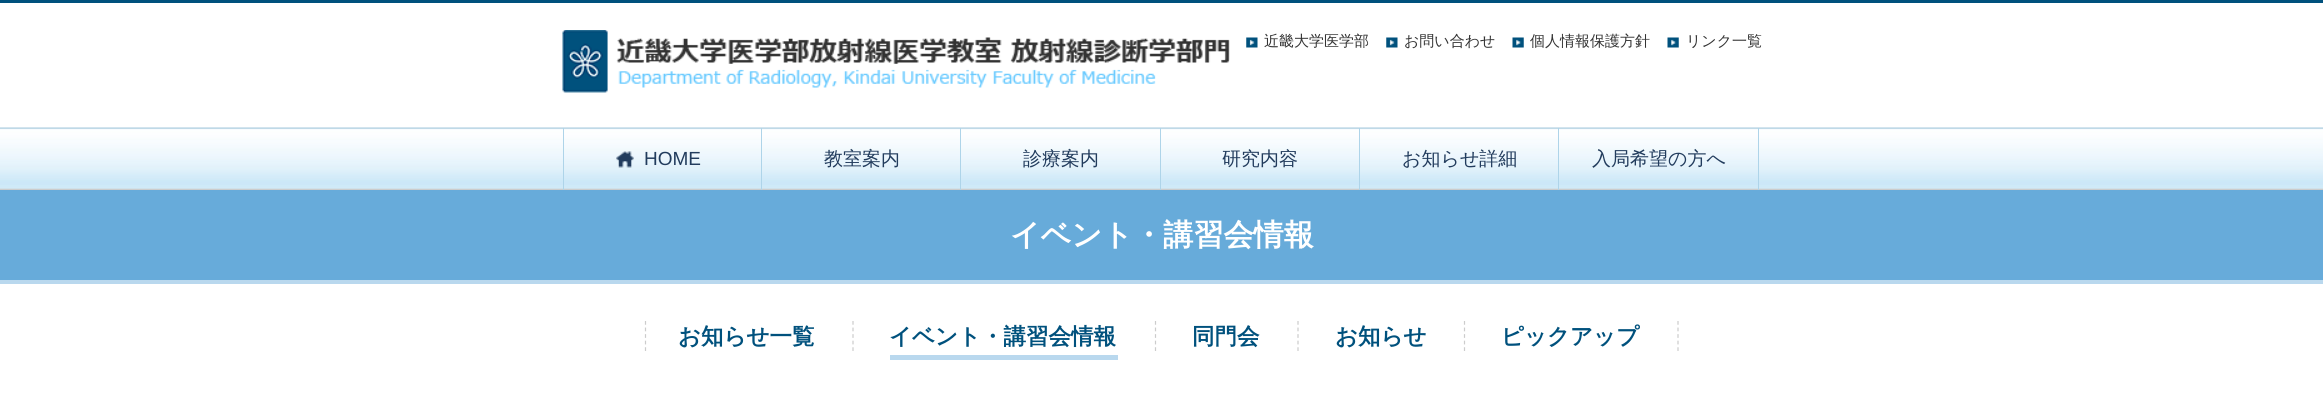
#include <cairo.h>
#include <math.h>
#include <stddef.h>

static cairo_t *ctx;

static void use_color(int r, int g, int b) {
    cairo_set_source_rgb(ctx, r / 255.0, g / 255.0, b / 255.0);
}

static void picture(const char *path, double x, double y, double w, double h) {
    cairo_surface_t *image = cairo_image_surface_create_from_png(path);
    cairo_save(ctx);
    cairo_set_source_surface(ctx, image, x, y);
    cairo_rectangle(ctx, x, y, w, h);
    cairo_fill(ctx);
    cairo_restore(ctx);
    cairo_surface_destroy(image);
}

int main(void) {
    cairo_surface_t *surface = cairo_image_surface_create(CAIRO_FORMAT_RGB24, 2323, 404);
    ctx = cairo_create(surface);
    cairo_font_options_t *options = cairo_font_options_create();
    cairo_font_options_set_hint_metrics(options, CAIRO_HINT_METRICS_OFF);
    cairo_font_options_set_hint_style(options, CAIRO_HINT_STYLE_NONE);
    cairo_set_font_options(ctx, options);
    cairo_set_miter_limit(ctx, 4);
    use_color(255, 255, 255);
    cairo_paint(ctx);
    use_color(0, 81, 125);
    cairo_rectangle(ctx, 0, 0, 2323, 3);
    cairo_fill(ctx);
    picture("img1.png", 562, 30, 668, 63);
    picture("img2.png", 1246, 37, 12, 11);
    cairo_select_font_face(ctx, "WenQuanYi Zen Hei Medium", CAIRO_FONT_SLANT_NORMAL, CAIRO_FONT_WEIGHT_NORMAL);
    cairo_set_font_size(ctx, 15);
    use_color(51, 51, 51);
    cairo_move_to(ctx, 1264, 46);
    cairo_show_text(ctx, "近畿大学医学部");
    picture("img2.png", 1386, 37, 12, 11);
    cairo_move_to(ctx, 1404, 46);
    cairo_show_text(ctx, "お問い合わせ");
    picture("img3.png", 1512, 37, 12, 11);
    cairo_move_to(ctx, 1530, 46);
    cairo_show_text(ctx, "個人情報保護方針");
    picture("img4.png", 1667, 37, 12, 11);
    cairo_move_to(ctx, 1686, 46);
    cairo_show_text(ctx, "リンク一覧");
    picture("img5.png", 0, 127, 2323, 63);
    use_color(174, 212, 233);
    cairo_rectangle(ctx, 761, 128, 1, 62);
    cairo_fill(ctx);
    cairo_rectangle(ctx, 563, 128, 1, 62);
    cairo_fill(ctx);
    picture("img6.png", 616, 151, 18, 17);
    cairo_select_font_face(ctx, "Liberation Sans", CAIRO_FONT_SLANT_NORMAL, CAIRO_FONT_WEIGHT_NORMAL);
    cairo_set_font_size(ctx, 19);
    use_color(34, 60, 93);
    cairo_move_to(ctx, 644, 165);
    cairo_show_text(ctx, "HOME");
    use_color(174, 212, 233);
    cairo_rectangle(ctx, 960, 128, 1, 62);
    cairo_fill(ctx);
    cairo_select_font_face(ctx, "WenQuanYi Zen Hei Medium", CAIRO_FONT_SLANT_NORMAL, CAIRO_FONT_WEIGHT_NORMAL);
    use_color(34, 60, 93);
    cairo_move_to(ctx, 824, 165);
    cairo_show_text(ctx, "教室案内");
    use_color(174, 212, 233);
    cairo_rectangle(ctx, 1160, 128, 1, 62);
    cairo_fill(ctx);
    use_color(34, 60, 93);
    cairo_move_to(ctx, 1023, 165);
    cairo_show_text(ctx, "診療案内");
    use_color(174, 212, 233);
    cairo_rectangle(ctx, 1359, 128, 1, 62);
    cairo_fill(ctx);
    use_color(34, 60, 93);
    cairo_move_to(ctx, 1222, 165);
    cairo_show_text(ctx, "研究内容");
    use_color(174, 212, 233);
    cairo_rectangle(ctx, 1558, 128, 1, 62);
    cairo_fill(ctx);
    use_color(34, 60, 93);
    cairo_move_to(ctx, 1402, 165);
    cairo_show_text(ctx, "お知らせ詳細");
    use_color(174, 212, 233);
    cairo_rectangle(ctx, 1758, 128, 1, 62);
    cairo_fill(ctx);
    use_color(34, 60, 93);
    cairo_move_to(ctx, 1592, 165);
    cairo_show_text(ctx, "入局希望の方へ");
    use_color(103, 171, 218);
    cairo_rectangle(ctx, 0, 190, 2323, 90);
    cairo_fill(ctx);
    use_color(185, 216, 238);
    cairo_rectangle(ctx, 0, 280, 2323, 4);
    cairo_fill(ctx);
    cairo_select_font_face(ctx, "WenQuanYi Zen Hei", CAIRO_FONT_SLANT_NORMAL, CAIRO_FONT_WEIGHT_BOLD);
    cairo_set_font_size(ctx, 30.1);
    use_color(255, 255, 255);
    cairo_move_to(ctx, 1010, 245);
    cairo_show_text(ctx, "イベント・講習会情報");
    cairo_new_path(ctx);
    cairo_move_to(ctx, 853, 321);
    cairo_line_to(ctx, 853, 351);
    use_color(204, 204, 204);
    cairo_set_line_width(ctx, 1.2);
    cairo_set_dash(ctx, (double[]){3.75, 2.81}, 2, 0);
    cairo_stroke(ctx);
    cairo_new_path(ctx);
    cairo_move_to(ctx, 645.5, 321);
    cairo_line_to(ctx, 645.5, 351);
    cairo_stroke(ctx);
    cairo_set_font_size(ctx, 22.5);
    use_color(0, 81, 125);
    cairo_move_to(ctx, 678, 344);
    cairo_show_text(ctx, "お知らせ一覧");
    cairo_new_path(ctx);
    cairo_move_to(ctx, 1155.5, 321);
    cairo_line_to(ctx, 1155.5, 351);
    use_color(204, 204, 204);
    cairo_stroke(ctx);
    use_color(0, 81, 125);
    cairo_move_to(ctx, 889, 344);
    cairo_show_text(ctx, "イベント・講習会情報");
    use_color(185, 216, 238);
    cairo_rectangle(ctx, 890, 355, 228, 5);
    cairo_fill(ctx);
    cairo_new_path(ctx);
    cairo_move_to(ctx, 1298, 321);
    cairo_line_to(ctx, 1298, 351);
    use_color(204, 204, 204);
    cairo_stroke(ctx);
    use_color(0, 81, 125);
    cairo_move_to(ctx, 1192, 344);
    cairo_show_text(ctx, "同門会");
    cairo_new_path(ctx);
    cairo_move_to(ctx, 1464.5, 321);
    cairo_line_to(ctx, 1464.5, 351);
    use_color(204, 204, 204);
    cairo_stroke(ctx);
    use_color(0, 81, 125);
    cairo_move_to(ctx, 1335, 344);
    cairo_show_text(ctx, "お知らせ");
    cairo_new_path(ctx);
    cairo_move_to(ctx, 1678, 321);
    cairo_line_to(ctx, 1678, 351);
    use_color(204, 204, 204);
    cairo_stroke(ctx);
    use_color(0, 81, 125);
    cairo_move_to(ctx, 1501, 344);
    cairo_show_text(ctx, "ピックアップ");
    cairo_surface_write_to_png(surface, "result.png");
    cairo_font_options_destroy(options);
    cairo_destroy(ctx);
    cairo_surface_destroy(surface);
    return 0;
}
